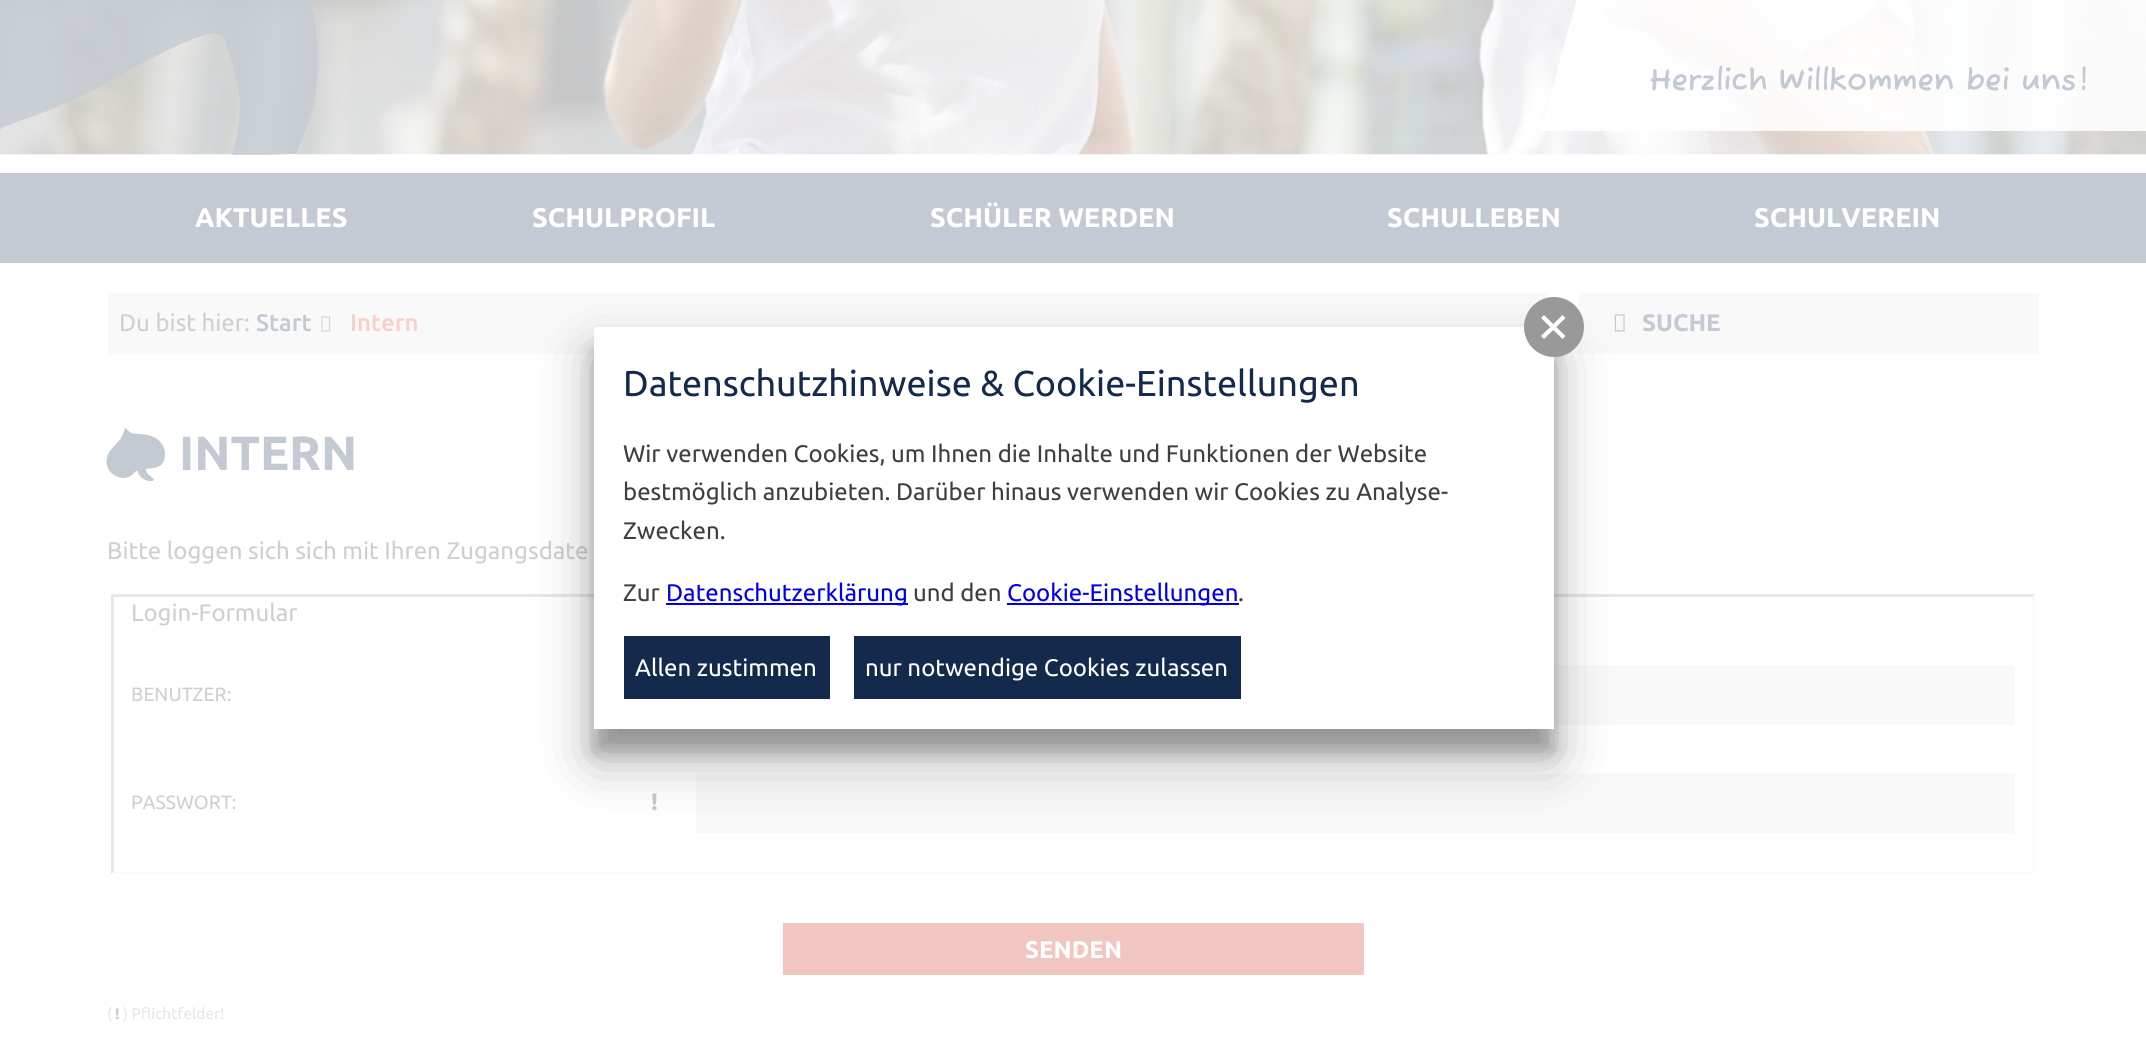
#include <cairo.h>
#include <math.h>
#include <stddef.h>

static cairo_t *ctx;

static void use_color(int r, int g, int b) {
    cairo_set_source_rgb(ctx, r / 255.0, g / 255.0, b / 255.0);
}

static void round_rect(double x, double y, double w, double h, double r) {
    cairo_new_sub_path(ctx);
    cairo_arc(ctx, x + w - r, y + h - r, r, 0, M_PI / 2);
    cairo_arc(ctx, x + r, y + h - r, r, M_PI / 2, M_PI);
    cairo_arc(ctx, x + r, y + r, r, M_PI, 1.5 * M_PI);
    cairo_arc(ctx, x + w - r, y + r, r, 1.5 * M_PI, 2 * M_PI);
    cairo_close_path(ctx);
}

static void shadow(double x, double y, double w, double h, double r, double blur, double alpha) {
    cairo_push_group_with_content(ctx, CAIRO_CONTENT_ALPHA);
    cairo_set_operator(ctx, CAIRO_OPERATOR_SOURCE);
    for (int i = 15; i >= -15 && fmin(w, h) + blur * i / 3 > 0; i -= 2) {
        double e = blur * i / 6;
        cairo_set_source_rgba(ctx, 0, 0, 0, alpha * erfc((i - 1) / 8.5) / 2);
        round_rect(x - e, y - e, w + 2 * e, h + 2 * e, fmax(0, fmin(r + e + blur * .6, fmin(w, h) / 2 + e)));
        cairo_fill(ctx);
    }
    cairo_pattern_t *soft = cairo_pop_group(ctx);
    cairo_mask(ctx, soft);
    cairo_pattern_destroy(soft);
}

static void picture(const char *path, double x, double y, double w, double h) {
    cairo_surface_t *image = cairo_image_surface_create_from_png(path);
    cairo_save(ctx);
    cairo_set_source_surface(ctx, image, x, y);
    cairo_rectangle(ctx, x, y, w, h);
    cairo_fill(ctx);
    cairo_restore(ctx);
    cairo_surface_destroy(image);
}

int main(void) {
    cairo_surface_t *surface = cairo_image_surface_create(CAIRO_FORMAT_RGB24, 2146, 1040);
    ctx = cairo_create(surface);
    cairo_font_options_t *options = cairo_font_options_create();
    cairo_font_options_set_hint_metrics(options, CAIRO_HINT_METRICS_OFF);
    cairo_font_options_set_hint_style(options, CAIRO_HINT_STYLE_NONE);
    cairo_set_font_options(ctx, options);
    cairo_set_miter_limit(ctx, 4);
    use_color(255, 255, 255);
    cairo_paint(ctx);
    picture("img2.png", 0, 0, 2146, 155);
    picture("img1.png", 0, 0, 318, 155);
    cairo_set_source_rgba(ctx, 1, 1, 1, 0.9);
    cairo_new_path(ctx);
    cairo_move_to(ctx, 1596, -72);
    cairo_line_to(ctx, 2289, -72);
    cairo_line_to(ctx, 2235, 131);
    cairo_line_to(ctx, 1541, 131);
    cairo_close_path(ctx);
    cairo_fill(ctx);
    cairo_select_font_face(ctx, "Fuzzy Bubbles", CAIRO_FONT_SLANT_NORMAL, CAIRO_FONT_WEIGHT_BOLD);
    cairo_set_font_size(ctx, 30);
    use_color(196, 202, 211);
    cairo_move_to(ctx, 1649, 90);
    cairo_show_text(ctx, "Herzlich Willkommen bei uns!");
    cairo_rectangle(ctx, 0, 173, 2146, 90);
    cairo_fill(ctx);
    cairo_select_font_face(ctx, "Ubuntu", CAIRO_FONT_SLANT_NORMAL, CAIRO_FONT_WEIGHT_BOLD);
    cairo_set_font_size(ctx, 27);
    use_color(255, 255, 255);
    cairo_move_to(ctx, 195, 227);
    cairo_show_text(ctx, "AKTUELLES");
    cairo_move_to(ctx, 532, 227);
    cairo_show_text(ctx, "SCHULPROFIL");
    cairo_move_to(ctx, 930, 227);
    cairo_show_text(ctx, "SCHÜLER WERDEN");
    cairo_move_to(ctx, 1387, 227);
    cairo_show_text(ctx, "SCHULLEBEN");
    cairo_move_to(ctx, 1754, 227);
    cairo_show_text(ctx, "SCHULVEREIN");
    use_color(249, 249, 249);
    cairo_rectangle(ctx, 108, 293, 1439, 61);
    cairo_fill(ctx);
    cairo_select_font_face(ctx, "Ubuntu", CAIRO_FONT_SLANT_NORMAL, CAIRO_FONT_WEIGHT_NORMAL);
    cairo_set_font_size(ctx, 24);
    use_color(207, 207, 207);
    cairo_move_to(ctx, 119, 331);
    cairo_show_text(ctx, "Du bist hier:");
    cairo_select_font_face(ctx, "Ubuntu Medium", CAIRO_FONT_SLANT_NORMAL, CAIRO_FONT_WEIGHT_NORMAL);
    use_color(196, 202, 211);
    cairo_move_to(ctx, 256, 331);
    cairo_show_text(ctx, "Start");
    picture("img3.png", 321, 316, 10, 16);
    use_color(249, 207, 202);
    cairo_move_to(ctx, 350, 331);
    cairo_show_text(ctx, "Intern");
    use_color(249, 249, 249);
    cairo_rectangle(ctx, 1578, 293, 461, 61);
    cairo_fill(ctx);
    picture("img4.png", 1614, 314, 11, 18);
    cairo_select_font_face(ctx, "Ubuntu", CAIRO_FONT_SLANT_NORMAL, CAIRO_FONT_WEIGHT_BOLD);
    use_color(196, 202, 211);
    cairo_move_to(ctx, 1642, 331);
    cairo_show_text(ctx, "SUCHE");
    picture("img5.png", 106, 427, 60, 54);
    cairo_set_font_size(ctx, 48);
    cairo_move_to(ctx, 179, 470);
    cairo_show_text(ctx, "INTERN");
    cairo_select_font_face(ctx, "Ubuntu", CAIRO_FONT_SLANT_NORMAL, CAIRO_FONT_WEIGHT_NORMAL);
    cairo_set_font_size(ctx, 24);
    use_color(207, 207, 207);
    cairo_move_to(ctx, 107, 559);
    cairo_show_text(ctx, "Bitte loggen sich sich mit Ihren Zugangsdate");
    use_color(231, 231, 231);
    cairo_new_path(ctx);
    cairo_move_to(ctx, 111, 594);
    cairo_line_to(ctx, 2036, 594);
    cairo_line_to(ctx, 2032, 597);
    cairo_line_to(ctx, 114, 597);
    cairo_close_path(ctx);
    cairo_fill(ctx);
    use_color(251, 251, 251);
    cairo_new_path(ctx);
    cairo_move_to(ctx, 2036, 594);
    cairo_line_to(ctx, 2036, 874);
    cairo_line_to(ctx, 2032, 872);
    cairo_line_to(ctx, 2032, 597);
    cairo_close_path(ctx);
    cairo_fill(ctx);
    cairo_new_path(ctx);
    cairo_move_to(ctx, 2036, 874);
    cairo_line_to(ctx, 111, 874);
    cairo_line_to(ctx, 114, 872);
    cairo_line_to(ctx, 2032, 872);
    cairo_close_path(ctx);
    cairo_fill(ctx);
    use_color(231, 231, 231);
    cairo_new_path(ctx);
    cairo_move_to(ctx, 111, 874);
    cairo_line_to(ctx, 111, 594);
    cairo_line_to(ctx, 114, 597);
    cairo_line_to(ctx, 114, 872);
    cairo_close_path(ctx);
    cairo_fill(ctx);
    use_color(207, 207, 207);
    cairo_move_to(ctx, 131, 621);
    cairo_show_text(ctx, "Login-Formular");
    cairo_set_font_size(ctx, 19.25);
    cairo_move_to(ctx, 131, 701);
    cairo_show_text(ctx, "BENUTZER:");
    use_color(249, 249, 249);
    cairo_rectangle(ctx, 1554, 665, 461, 60);
    cairo_fill(ctx);
    use_color(207, 207, 207);
    cairo_move_to(ctx, 131, 809);
    cairo_show_text(ctx, "PASSWORT:");
    cairo_select_font_face(ctx, "Ubuntu", CAIRO_FONT_SLANT_NORMAL, CAIRO_FONT_WEIGHT_BOLD);
    cairo_set_font_size(ctx, 24);
    use_color(196, 202, 211);
    cairo_move_to(ctx, 651, 810);
    cairo_show_text(ctx, "!");
    use_color(249, 249, 249);
    cairo_rectangle(ctx, 696, 773, 1319, 60);
    cairo_fill(ctx);
    use_color(241, 197, 192);
    cairo_rectangle(ctx, 783, 923, 581, 52);
    cairo_fill(ctx);
    use_color(255, 255, 255);
    cairo_move_to(ctx, 1025, 958);
    cairo_show_text(ctx, "SENDEN");
    cairo_select_font_face(ctx, "Ubuntu", CAIRO_FONT_SLANT_NORMAL, CAIRO_FONT_WEIGHT_NORMAL);
    cairo_set_font_size(ctx, 15.5);
    use_color(230, 230, 230);
    cairo_move_to(ctx, 107, 1019);
    cairo_show_text(ctx, "(");
    cairo_select_font_face(ctx, "Ubuntu", CAIRO_FONT_SLANT_NORMAL, CAIRO_FONT_WEIGHT_BOLD);
    use_color(196, 202, 211);
    cairo_move_to(ctx, 115, 1019);
    cairo_show_text(ctx, "!");
    cairo_select_font_face(ctx, "Ubuntu", CAIRO_FONT_SLANT_NORMAL, CAIRO_FONT_WEIGHT_NORMAL);
    use_color(230, 230, 230);
    cairo_move_to(ctx, 123, 1019);
    cairo_show_text(ctx, ") Pflichtfelder!");
    use_color(0, 0, 0);
    shadow(594, 350, 960, 402, 0, 9, 0.22);
    shadow(594, 356, 960, 402, 0, 28.5, 0.3);
    use_color(255, 255, 255);
    cairo_rectangle(ctx, 594, 327, 960, 402);
    cairo_fill(ctx);
    use_color(153, 153, 153);
    cairo_arc(ctx, 1554, 327, 30, 0, 2 * M_PI);
    cairo_fill(ctx);
    use_color(255, 255, 255);
    cairo_new_path(ctx);
    cairo_move_to(ctx, 1544, 315);
    cairo_line_to(ctx, 1565.5, 336);
    cairo_line_to(ctx, 1562.5, 339);
    cairo_line_to(ctx, 1541, 318);
    cairo_close_path(ctx);
    cairo_fill(ctx);
    cairo_new_path(ctx);
    cairo_move_to(ctx, 1541, 336);
    cairo_line_to(ctx, 1562.5, 315);
    cairo_line_to(ctx, 1565.5, 318);
    cairo_line_to(ctx, 1544, 339);
    cairo_close_path(ctx);
    cairo_fill(ctx);
    cairo_set_font_size(ctx, 36);
    use_color(19, 42, 77);
    cairo_move_to(ctx, 623, 396);
    cairo_show_text(ctx, "Datenschutzhinweise & Cookie-Einstellungen");
    cairo_set_font_size(ctx, 24);
    use_color(63, 63, 63);
    cairo_move_to(ctx, 623, 462);
    cairo_show_text(ctx, "Wir verwenden Cookies, um Ihnen die Inhalte und Funktionen der Website");
    cairo_move_to(ctx, 623, 500);
    cairo_show_text(ctx, "bestmöglich anzubieten. Darüber hinaus verwenden wir Cookies zu Analyse-");
    cairo_move_to(ctx, 623, 539);
    cairo_show_text(ctx, "Zwecken.");
    cairo_move_to(ctx, 623, 601);
    cairo_show_text(ctx, "Zur");
    use_color(0, 0, 238);
    cairo_rectangle(ctx, 666, 603, 242, 2);
    cairo_fill(ctx);
    cairo_move_to(ctx, 666, 601);
    cairo_show_text(ctx, "Datenschutzerklärung");
    use_color(63, 63, 63);
    cairo_move_to(ctx, 913, 601);
    cairo_show_text(ctx, "und den");
    use_color(0, 0, 238);
    cairo_rectangle(ctx, 1007, 603, 232, 2);
    cairo_fill(ctx);
    cairo_move_to(ctx, 1007, 601);
    cairo_show_text(ctx, "Cookie-Einstellungen");
    use_color(63, 63, 63);
    cairo_move_to(ctx, 1238, 601);
    cairo_show_text(ctx, ".");
    use_color(19, 42, 77);
    cairo_rectangle(ctx, 624, 636, 206, 63);
    cairo_fill(ctx);
    use_color(255, 255, 255);
    cairo_move_to(ctx, 635, 676);
    cairo_show_text(ctx, "Allen zustimmen");
    use_color(19, 42, 77);
    cairo_rectangle(ctx, 854, 636, 387, 63);
    cairo_fill(ctx);
    use_color(255, 255, 255);
    cairo_move_to(ctx, 865, 676);
    cairo_show_text(ctx, "nur notwendige Cookies zulassen");
    cairo_surface_write_to_png(surface, "result.png");
    cairo_font_options_destroy(options);
    cairo_destroy(ctx);
    cairo_surface_destroy(surface);
    return 0;
}
